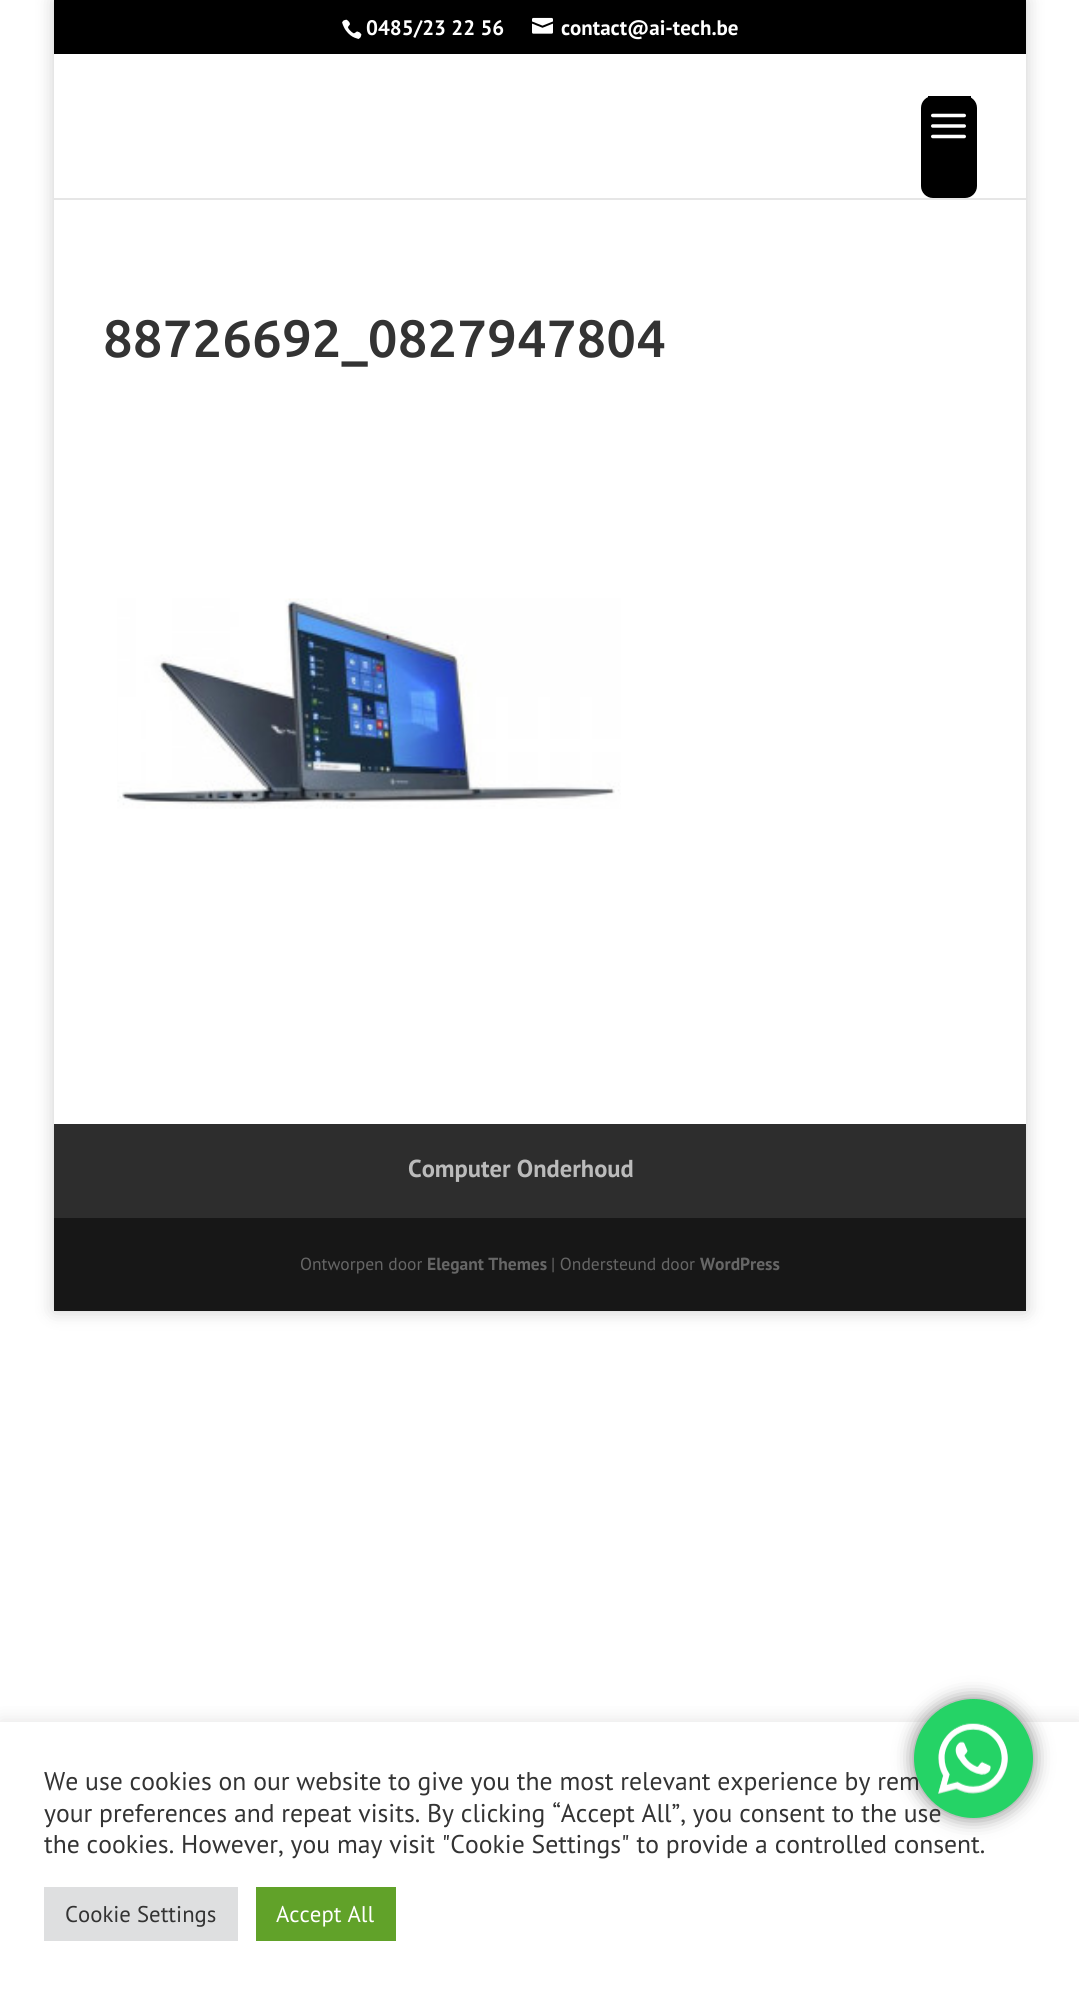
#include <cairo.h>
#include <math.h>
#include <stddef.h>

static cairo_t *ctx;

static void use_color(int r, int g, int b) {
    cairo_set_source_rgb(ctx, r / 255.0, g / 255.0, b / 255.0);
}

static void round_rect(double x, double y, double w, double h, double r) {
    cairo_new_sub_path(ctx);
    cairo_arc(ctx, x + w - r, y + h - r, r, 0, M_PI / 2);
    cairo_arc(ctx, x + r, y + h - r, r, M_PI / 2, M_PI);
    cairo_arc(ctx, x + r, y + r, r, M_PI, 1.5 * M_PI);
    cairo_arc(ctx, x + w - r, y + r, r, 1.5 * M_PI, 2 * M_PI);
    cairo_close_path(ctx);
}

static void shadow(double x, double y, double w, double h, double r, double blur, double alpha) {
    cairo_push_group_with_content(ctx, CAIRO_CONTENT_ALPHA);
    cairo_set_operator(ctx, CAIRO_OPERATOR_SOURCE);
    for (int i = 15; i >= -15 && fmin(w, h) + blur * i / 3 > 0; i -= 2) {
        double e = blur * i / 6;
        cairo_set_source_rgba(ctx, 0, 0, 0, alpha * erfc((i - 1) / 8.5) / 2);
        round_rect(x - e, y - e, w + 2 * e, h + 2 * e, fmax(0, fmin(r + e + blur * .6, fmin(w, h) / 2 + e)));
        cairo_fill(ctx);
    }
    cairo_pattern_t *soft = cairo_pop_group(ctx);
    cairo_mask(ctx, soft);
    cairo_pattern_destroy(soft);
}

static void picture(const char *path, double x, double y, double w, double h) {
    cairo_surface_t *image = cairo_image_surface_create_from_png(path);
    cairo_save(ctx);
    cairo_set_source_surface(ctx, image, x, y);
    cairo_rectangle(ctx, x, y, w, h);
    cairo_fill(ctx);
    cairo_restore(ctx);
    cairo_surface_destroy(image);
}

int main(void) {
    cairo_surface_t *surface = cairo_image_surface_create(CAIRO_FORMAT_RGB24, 1079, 1992);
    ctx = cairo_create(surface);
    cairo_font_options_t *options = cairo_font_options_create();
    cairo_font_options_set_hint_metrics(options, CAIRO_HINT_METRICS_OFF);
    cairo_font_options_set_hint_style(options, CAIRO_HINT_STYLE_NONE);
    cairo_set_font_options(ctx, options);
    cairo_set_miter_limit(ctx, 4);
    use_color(255, 255, 255);
    cairo_paint(ctx);
    use_color(0, 0, 0);
    shadow(54, 0, 972, 1311, 0, 9, 0.2);
    use_color(0, 0, 0);
    cairo_rectangle(ctx, 54, 0, 972, 54);
    cairo_fill(ctx);
    picture("img1.png", 342, 19, 20, 20);
    cairo_select_font_face(ctx, "PT Sans", CAIRO_FONT_SLANT_NORMAL, CAIRO_FONT_WEIGHT_BOLD);
    cairo_set_font_size(ctx, 21);
    use_color(255, 255, 255);
    cairo_move_to(ctx, 366, 35);
    cairo_show_text(ctx, "0485/23 22 56");
    picture("img2.png", 532, 17, 21, 17);
    cairo_move_to(ctx, 561, 35);
    cairo_show_text(ctx, "contact@ai-tech.be");
    use_color(230, 230, 230);
    cairo_new_path(ctx);
    cairo_move_to(ctx, 54, 56);
    cairo_line_to(ctx, 54, 200);
    cairo_line_to(ctx, 1026, 200);
    cairo_line_to(ctx, 1026, 56);
    cairo_line_to(ctx, 1026, 198);
    cairo_line_to(ctx, 54, 198);
    cairo_close_path(ctx);
    cairo_fill(ctx);
    use_color(255, 255, 255);
    cairo_rectangle(ctx, 54, 54, 972, 144);
    cairo_fill(ctx);
    use_color(0, 0, 0);
    round_rect(921, 96, 56, 102, 12);
    cairo_fill(ctx);
    cairo_rectangle(ctx, 928, 96, 43, 2);
    cairo_fill(ctx);
    picture("img3.png", 931, 113, 35, 26);
    use_color(255, 255, 255);
    cairo_rectangle(ctx, 54, 200, 972, 924);
    cairo_fill(ctx);
    cairo_select_font_face(ctx, "Ubuntu Medium", CAIRO_FONT_SLANT_NORMAL, CAIRO_FONT_WEIGHT_NORMAL);
    cairo_set_font_size(ctx, 52.5);
    use_color(51, 51, 51);
    cairo_move_to(ctx, 103, 357);
    cairo_show_text(ctx, "88726692_0827947804");
    picture("img4.png", 117, 598, 504, 211);
    use_color(45, 45, 45);
    cairo_rectangle(ctx, 54, 1124, 972, 94);
    cairo_fill(ctx);
    cairo_select_font_face(ctx, "PT Sans", CAIRO_FONT_SLANT_NORMAL, CAIRO_FONT_WEIGHT_BOLD);
    cairo_set_font_size(ctx, 24.5);
    use_color(187, 187, 187);
    cairo_move_to(ctx, 408, 1177);
    cairo_show_text(ctx, "Computer Onderhoud");
    use_color(23, 23, 23);
    cairo_rectangle(ctx, 54, 1218, 972, 93);
    cairo_fill(ctx);
    cairo_select_font_face(ctx, "PT Sans", CAIRO_FONT_SLANT_NORMAL, CAIRO_FONT_WEIGHT_NORMAL);
    cairo_set_font_size(ctx, 17.5);
    use_color(102, 102, 102);
    cairo_move_to(ctx, 300, 1270);
    cairo_show_text(ctx, "Ontworpen door");
    cairo_select_font_face(ctx, "PT Sans", CAIRO_FONT_SLANT_NORMAL, CAIRO_FONT_WEIGHT_BOLD);
    cairo_move_to(ctx, 427, 1270);
    cairo_show_text(ctx, "Elegant Themes");
    cairo_select_font_face(ctx, "PT Sans", CAIRO_FONT_SLANT_NORMAL, CAIRO_FONT_WEIGHT_NORMAL);
    cairo_move_to(ctx, 551, 1270);
    cairo_show_text(ctx, "| Ondersteund door");
    cairo_select_font_face(ctx, "PT Sans", CAIRO_FONT_SLANT_NORMAL, CAIRO_FONT_WEIGHT_BOLD);
    cairo_move_to(ctx, 700, 1270);
    cairo_show_text(ctx, "WordPress");
    use_color(0, 0, 0);
    shadow(914, 1699, 119, 119, 59.5, 9.5, 0.5);
    cairo_save(ctx);
    cairo_rectangle(ctx, 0, 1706, 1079, 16);
    cairo_clip(ctx);
    use_color(172, 171, 171);
    shadow(0, 1720, 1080, 272, 0, 9, 0.3);
    cairo_restore(ctx);
    cairo_select_font_face(ctx, "PT Sans", CAIRO_FONT_SLANT_NORMAL, CAIRO_FONT_WEIGHT_NORMAL);
    cairo_set_font_size(ctx, 25.65);
    use_color(51, 51, 51);
    cairo_move_to(ctx, 44, 1790);
    cairo_show_text(ctx, "We use cookies on our website to give you the most relevant experience by rem");
    cairo_move_to(ctx, 44, 1822);
    cairo_show_text(ctx, "your preferences and repeat visits. By clicking “Accept All”, you consent to the use");
    use_color(37, 211, 102);
    cairo_new_path(ctx);
    cairo_arc(ctx, 973.5, 1758.5, 59.5, 0, 2 * M_PI);
    cairo_fill(ctx);
    picture("img5.png", 938, 1723, 70, 71);
    use_color(51, 51, 51);
    cairo_move_to(ctx, 44, 1853);
    cairo_show_text(ctx, "the cookies. However, you may visit \"Cookie Settings\" to provide a controlled consent.");
    use_color(222, 223, 224);
    cairo_rectangle(ctx, 44, 1887, 194, 54);
    cairo_fill(ctx);
    cairo_set_font_size(ctx, 22.75);
    use_color(51, 51, 51);
    cairo_move_to(ctx, 65, 1922);
    cairo_show_text(ctx, "Cookie Settings");
    use_color(97, 162, 41);
    cairo_rectangle(ctx, 256, 1887, 140, 54);
    cairo_fill(ctx);
    use_color(255, 255, 255);
    cairo_move_to(ctx, 276, 1922);
    cairo_show_text(ctx, "Accept All");
    cairo_surface_write_to_png(surface, "result.png");
    cairo_font_options_destroy(options);
    cairo_destroy(ctx);
    cairo_surface_destroy(surface);
    return 0;
}
